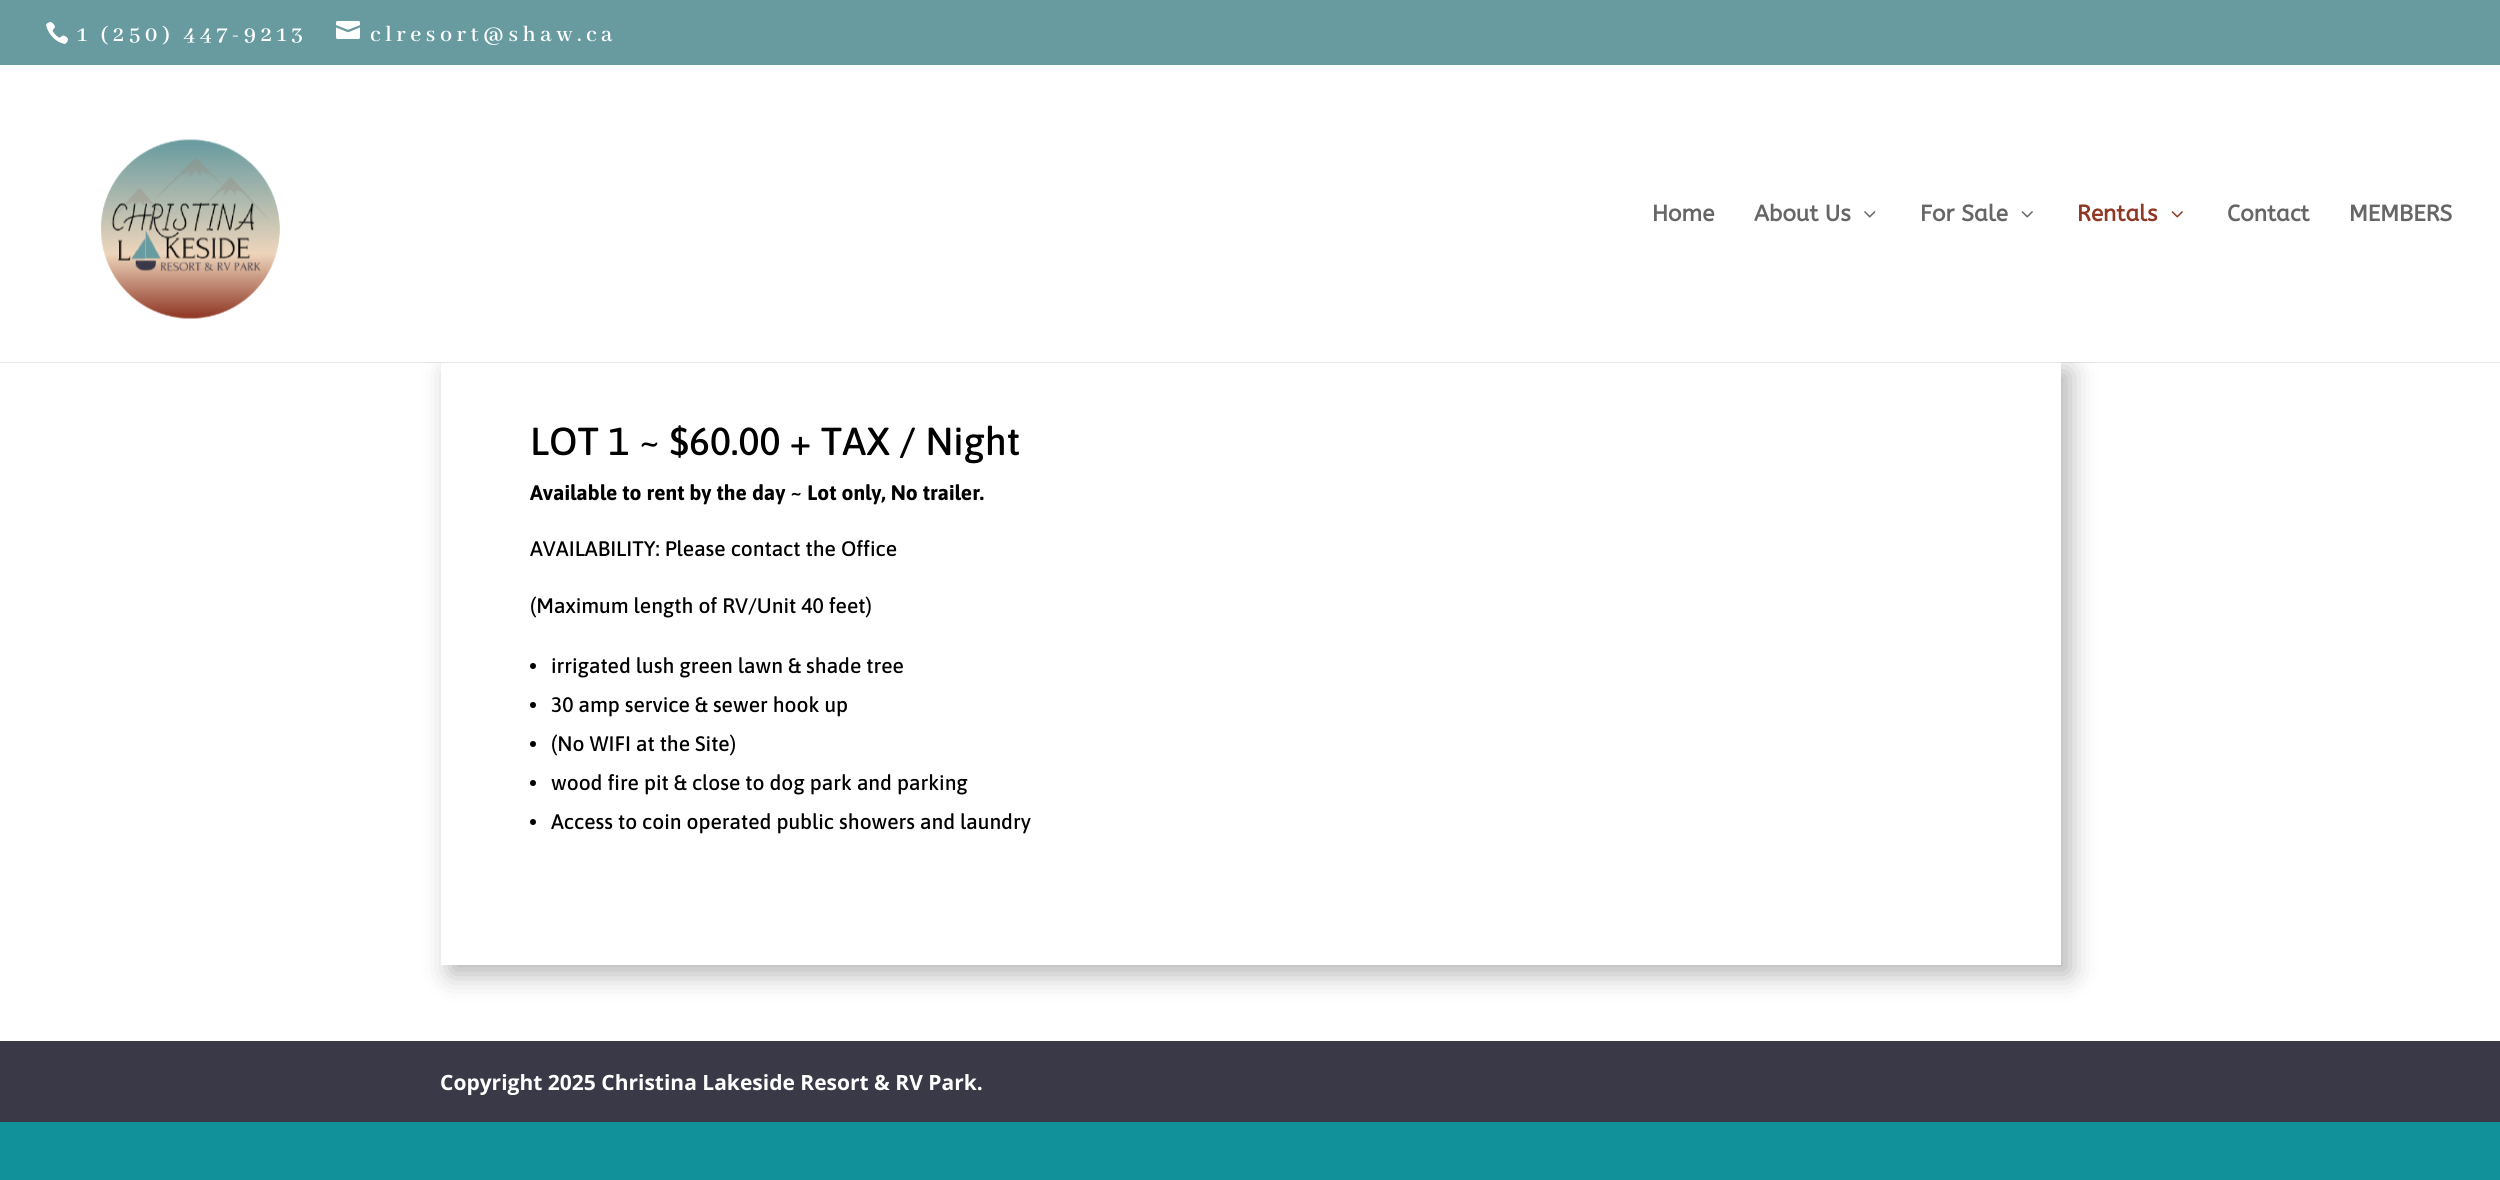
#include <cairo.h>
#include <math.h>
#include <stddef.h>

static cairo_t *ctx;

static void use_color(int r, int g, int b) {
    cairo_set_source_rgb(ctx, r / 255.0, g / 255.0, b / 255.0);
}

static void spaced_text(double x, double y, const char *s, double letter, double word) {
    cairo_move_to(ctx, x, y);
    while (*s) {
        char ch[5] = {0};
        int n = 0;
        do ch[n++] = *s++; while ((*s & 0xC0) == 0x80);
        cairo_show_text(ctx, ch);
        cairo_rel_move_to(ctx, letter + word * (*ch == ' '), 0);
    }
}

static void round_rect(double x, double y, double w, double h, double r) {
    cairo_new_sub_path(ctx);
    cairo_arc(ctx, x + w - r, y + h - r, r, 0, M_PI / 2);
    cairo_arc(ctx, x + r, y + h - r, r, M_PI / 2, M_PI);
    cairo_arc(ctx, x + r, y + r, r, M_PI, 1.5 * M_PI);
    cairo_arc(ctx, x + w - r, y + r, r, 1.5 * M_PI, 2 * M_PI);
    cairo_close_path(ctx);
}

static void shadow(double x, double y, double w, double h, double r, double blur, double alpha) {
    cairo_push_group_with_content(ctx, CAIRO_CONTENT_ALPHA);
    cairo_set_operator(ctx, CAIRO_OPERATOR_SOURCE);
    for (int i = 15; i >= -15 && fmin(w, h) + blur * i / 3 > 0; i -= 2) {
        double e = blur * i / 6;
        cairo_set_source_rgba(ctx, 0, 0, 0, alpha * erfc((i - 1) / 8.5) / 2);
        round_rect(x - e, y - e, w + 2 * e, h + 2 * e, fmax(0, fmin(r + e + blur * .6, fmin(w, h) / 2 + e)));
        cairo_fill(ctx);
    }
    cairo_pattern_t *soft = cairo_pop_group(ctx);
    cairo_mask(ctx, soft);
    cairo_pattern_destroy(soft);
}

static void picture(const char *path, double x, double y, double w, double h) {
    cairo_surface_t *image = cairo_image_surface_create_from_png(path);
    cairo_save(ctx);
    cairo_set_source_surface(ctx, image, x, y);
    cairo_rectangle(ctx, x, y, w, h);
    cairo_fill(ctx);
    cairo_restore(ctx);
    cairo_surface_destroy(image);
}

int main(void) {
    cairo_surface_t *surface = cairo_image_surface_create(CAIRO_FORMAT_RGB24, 2500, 1180);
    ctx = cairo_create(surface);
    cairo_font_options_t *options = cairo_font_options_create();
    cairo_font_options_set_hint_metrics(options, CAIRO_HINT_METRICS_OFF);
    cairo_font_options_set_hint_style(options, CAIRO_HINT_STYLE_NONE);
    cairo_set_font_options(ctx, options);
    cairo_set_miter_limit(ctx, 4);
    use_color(17, 146, 155);
    cairo_paint(ctx);
    use_color(104, 155, 160);
    cairo_rectangle(ctx, 0, 0, 2500, 65);
    cairo_fill(ctx);
    picture("img1.png", 46, 22, 22, 22);
    cairo_select_font_face(ctx, "Abhaya Libre SemiBold SemiBold", CAIRO_FONT_SLANT_NORMAL, CAIRO_FONT_WEIGHT_NORMAL);
    cairo_set_font_size(ctx, 24);
    use_color(255, 255, 255);
    spaced_text(77, 41, "1 (250) 447-9213", 4.5, 0);
    picture("img2.png", 336, 21, 24, 18);
    spaced_text(370, 41, "clresort@shaw.ca", 4.5, 0);
    cairo_rectangle(ctx, 0, 362, 2500, 679);
    cairo_fill(ctx);
    use_color(0, 0, 0);
    shadow(450, 371, 1620, 603, 0, 13.5, 0.3);
    use_color(255, 255, 255);
    cairo_rectangle(ctx, 441, 362, 1620, 603);
    cairo_fill(ctx);
    cairo_set_source_rgba(ctx, 0, 0, 0, 0.1);
    cairo_new_path(ctx);
    cairo_move_to(ctx, 0, 362);
    cairo_line_to(ctx, 0, 363);
    cairo_line_to(ctx, 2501, 363);
    cairo_line_to(ctx, 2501, 66);
    cairo_line_to(ctx, 2500, 66);
    cairo_line_to(ctx, 2500, 362);
    cairo_close_path(ctx);
    cairo_fill(ctx);
    use_color(255, 255, 255);
    cairo_rectangle(ctx, 0, 65, 2500, 297);
    cairo_fill(ctx);
    picture("img3.png", 101, 139, 179, 180);
    cairo_select_font_face(ctx, "ABeeZee", CAIRO_FONT_SLANT_NORMAL, CAIRO_FONT_WEIGHT_BOLD);
    cairo_set_font_size(ctx, 22.5);
    use_color(102, 102, 102);
    cairo_move_to(ctx, 1652, 221);
    cairo_show_text(ctx, "Home");
    cairo_move_to(ctx, 1754, 221);
    cairo_show_text(ctx, "About Us");
    picture("img4.png", 1864, 211, 12, 7);
    cairo_move_to(ctx, 1920, 221);
    cairo_show_text(ctx, "For Sale");
    picture("img5.png", 2021, 211, 12, 7);
    use_color(144, 56, 38);
    cairo_move_to(ctx, 2077, 221);
    cairo_show_text(ctx, "Rentals");
    picture("img6.png", 2171, 211, 12, 7);
    use_color(102, 102, 102);
    cairo_move_to(ctx, 2227, 221);
    cairo_show_text(ctx, "Contact");
    cairo_move_to(ctx, 2349, 221);
    cairo_show_text(ctx, "MEMBERS");
    cairo_select_font_face(ctx, "Asap Medium", CAIRO_FONT_SLANT_NORMAL, CAIRO_FONT_WEIGHT_NORMAL);
    cairo_set_font_size(ctx, 39);
    use_color(0, 0, 0);
    cairo_move_to(ctx, 530, 455);
    cairo_show_text(ctx, "LOT 1 ~ $60.00 + TAX / Night");
    cairo_select_font_face(ctx, "Asap", CAIRO_FONT_SLANT_NORMAL, CAIRO_FONT_WEIGHT_BOLD);
    cairo_set_font_size(ctx, 21);
    cairo_move_to(ctx, 530, 500);
    cairo_show_text(ctx, "Available to rent by the day ~ Lot only, No trailer.");
    cairo_select_font_face(ctx, "Asap Medium", CAIRO_FONT_SLANT_NORMAL, CAIRO_FONT_WEIGHT_NORMAL);
    cairo_move_to(ctx, 530, 556);
    cairo_show_text(ctx, "AVAILABILITY: Please contact the Office");
    cairo_move_to(ctx, 530, 613);
    cairo_show_text(ctx, "(Maximum length of RV/Unit 40 feet)");
    cairo_new_path(ctx);
    cairo_arc(ctx, 533, 666, 3, 0, 2 * M_PI);
    cairo_fill(ctx);
    cairo_move_to(ctx, 551, 673);
    cairo_show_text(ctx, "irrigated lush green lawn & shade tree");
    cairo_new_path(ctx);
    cairo_arc(ctx, 533, 705, 3, 0, 2 * M_PI);
    cairo_fill(ctx);
    cairo_move_to(ctx, 551, 712);
    cairo_show_text(ctx, "30 amp service & sewer hook up");
    cairo_new_path(ctx);
    cairo_arc(ctx, 533, 744, 3, 0, 2 * M_PI);
    cairo_fill(ctx);
    cairo_move_to(ctx, 551, 751);
    cairo_show_text(ctx, "(No WIFI at the Site)");
    cairo_new_path(ctx);
    cairo_arc(ctx, 533, 783, 3, 0, 2 * M_PI);
    cairo_fill(ctx);
    cairo_move_to(ctx, 551, 790);
    cairo_show_text(ctx, "wood fire pit & close to dog park and parking");
    cairo_new_path(ctx);
    cairo_arc(ctx, 533, 822, 3, 0, 2 * M_PI);
    cairo_fill(ctx);
    cairo_move_to(ctx, 551, 829);
    cairo_show_text(ctx, "Access to coin operated public showers and laundry");
    use_color(58, 57, 71);
    cairo_rectangle(ctx, 0, 1041, 2500, 81);
    cairo_fill(ctx);
    cairo_select_font_face(ctx, "Open Sans", CAIRO_FONT_SLANT_NORMAL, CAIRO_FONT_WEIGHT_BOLD);
    use_color(255, 255, 255);
    cairo_move_to(ctx, 440, 1090);
    cairo_show_text(ctx, "Copyright 2025 Christina Lakeside Resort & RV Park.");
    cairo_surface_write_to_png(surface, "result.png");
    cairo_font_options_destroy(options);
    cairo_destroy(ctx);
    cairo_surface_destroy(surface);
    return 0;
}
